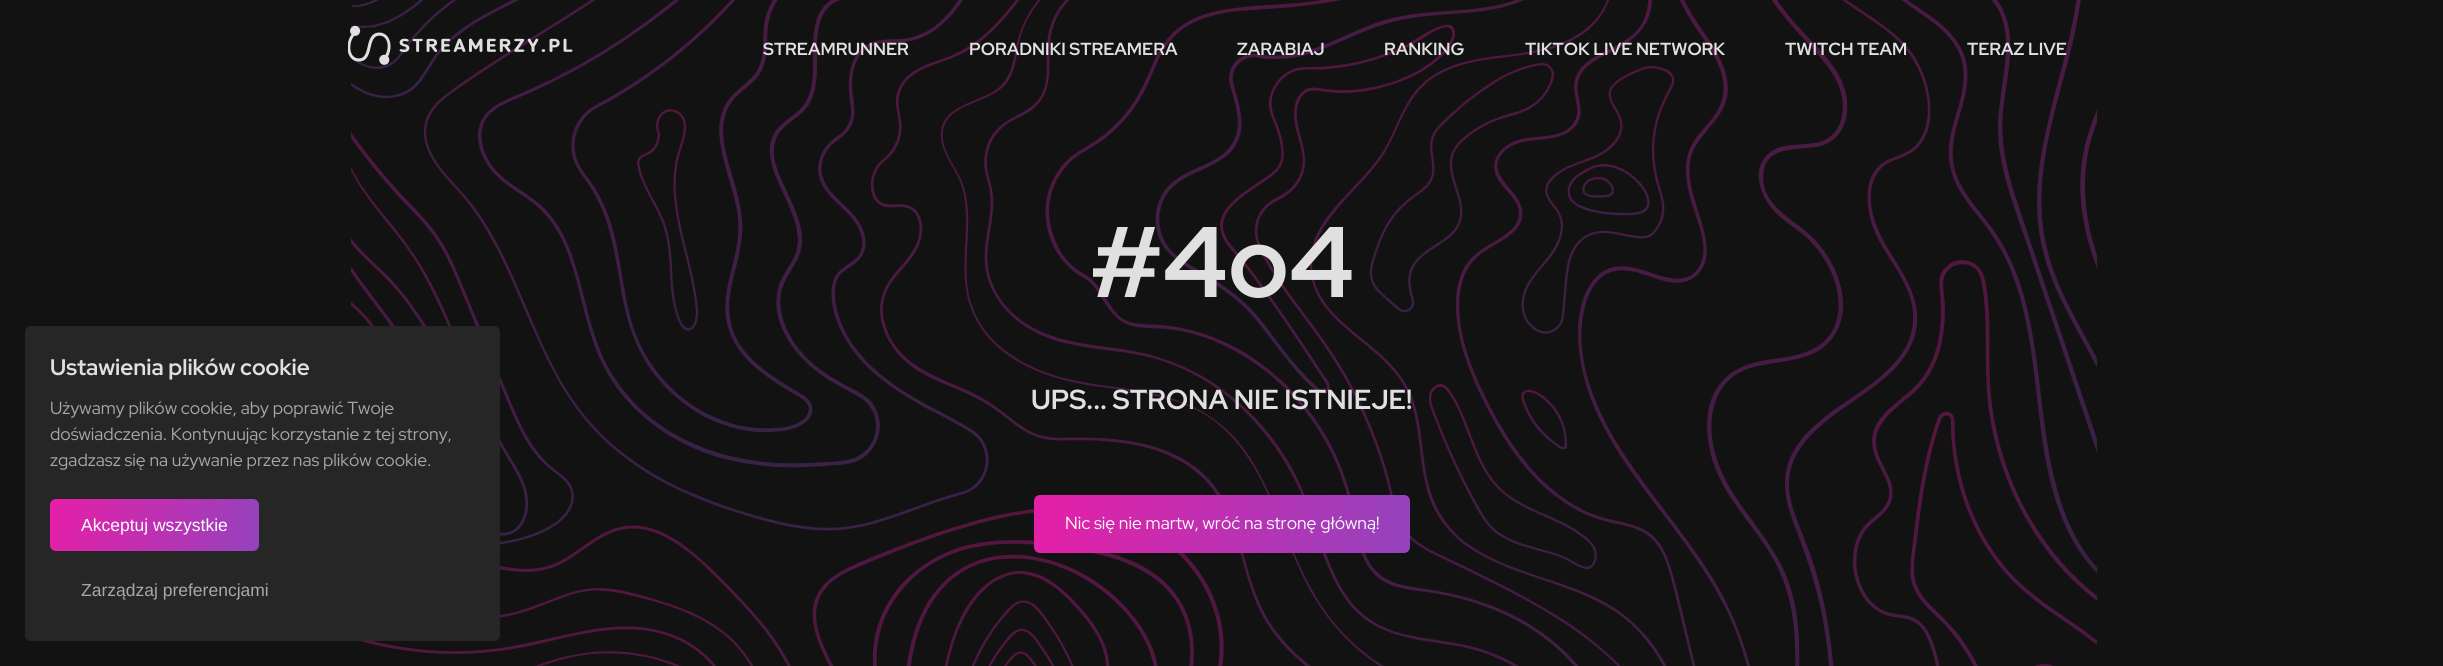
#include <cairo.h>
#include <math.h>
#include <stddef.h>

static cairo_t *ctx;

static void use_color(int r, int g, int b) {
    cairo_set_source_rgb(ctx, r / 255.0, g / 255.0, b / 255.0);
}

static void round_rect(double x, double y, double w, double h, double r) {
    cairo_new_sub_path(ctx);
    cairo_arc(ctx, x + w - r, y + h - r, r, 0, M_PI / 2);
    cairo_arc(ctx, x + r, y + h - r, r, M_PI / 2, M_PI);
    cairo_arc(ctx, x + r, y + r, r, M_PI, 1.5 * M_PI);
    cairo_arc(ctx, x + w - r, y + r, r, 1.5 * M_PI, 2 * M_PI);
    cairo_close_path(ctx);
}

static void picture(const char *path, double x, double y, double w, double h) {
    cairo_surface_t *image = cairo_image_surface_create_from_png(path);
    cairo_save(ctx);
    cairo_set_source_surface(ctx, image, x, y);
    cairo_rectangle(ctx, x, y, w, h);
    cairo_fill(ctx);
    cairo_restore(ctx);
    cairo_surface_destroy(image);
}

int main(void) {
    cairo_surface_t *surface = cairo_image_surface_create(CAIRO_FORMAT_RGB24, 2443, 666);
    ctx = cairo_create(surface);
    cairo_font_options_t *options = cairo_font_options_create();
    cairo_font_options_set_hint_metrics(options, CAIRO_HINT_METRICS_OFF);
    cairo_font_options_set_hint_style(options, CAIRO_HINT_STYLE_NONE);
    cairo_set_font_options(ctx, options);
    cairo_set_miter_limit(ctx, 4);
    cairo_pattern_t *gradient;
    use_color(18, 18, 18);
    cairo_paint(ctx);
    picture("img2.png", 351, 0, 1747, 666);
    use_color(38, 38, 38);
    round_rect(25, 326, 475, 315, 6);
    cairo_fill(ctx);
    cairo_select_font_face(ctx, "Red Hat Display", CAIRO_FONT_SLANT_NORMAL, CAIRO_FONT_WEIGHT_BOLD);
    cairo_set_font_size(ctx, 22.5);
    use_color(225, 224, 224);
    cairo_move_to(ctx, 50, 375);
    cairo_show_text(ctx, "Ustawienia plików cookie");
    cairo_select_font_face(ctx, "Red Hat Display", CAIRO_FONT_SLANT_NORMAL, CAIRO_FONT_WEIGHT_NORMAL);
    cairo_set_font_size(ctx, 17.5);
    use_color(168, 168, 168);
    cairo_move_to(ctx, 50, 414);
    cairo_show_text(ctx, "Używamy plików cookie, aby poprawić Twoje");
    cairo_move_to(ctx, 50, 440);
    cairo_show_text(ctx, "doświadczenia. Kontynuując korzystanie z tej strony,");
    cairo_move_to(ctx, 50, 466);
    cairo_show_text(ctx, "zgadzasz się na używanie przez nas plików cookie.");
    gradient = cairo_pattern_create_linear(49, 504, 260, 546);
    cairo_pattern_add_color_stop_rgba(gradient, 0, 0.902, 0.122, 0.655, 1);
    cairo_pattern_add_color_stop_rgba(gradient, 1, 0.58, 0.263, 0.741, 1);
    cairo_set_source(ctx, gradient);
    cairo_pattern_destroy(gradient);
    round_rect(50, 499, 209, 52, 6);
    cairo_fill(ctx);
    cairo_select_font_face(ctx, "Liberation Sans", CAIRO_FONT_SLANT_NORMAL, CAIRO_FONT_WEIGHT_NORMAL);
    use_color(255, 255, 255);
    cairo_move_to(ctx, 81, 531);
    cairo_show_text(ctx, "Akceptuj wszystkie");
    use_color(168, 168, 168);
    cairo_move_to(ctx, 81, 596);
    cairo_show_text(ctx, "Zarządzaj preferencjami");
    picture("img1.png", 348, 25, 225, 40);
    cairo_select_font_face(ctx, "Red Hat Display", CAIRO_FONT_SLANT_NORMAL, CAIRO_FONT_WEIGHT_BOLD);
    use_color(225, 224, 224);
    cairo_move_to(ctx, 763, 55);
    cairo_show_text(ctx, "STREAMRUNNER");
    cairo_move_to(ctx, 969, 55);
    cairo_show_text(ctx, "PORADNIKI STREAMERA");
    cairo_move_to(ctx, 1237, 55);
    cairo_show_text(ctx, "ZARABIAJ");
    cairo_move_to(ctx, 1384, 55);
    cairo_show_text(ctx, "RANKING");
    cairo_move_to(ctx, 1525, 55);
    cairo_show_text(ctx, "TIKTOK LIVE NETWORK");
    cairo_move_to(ctx, 1785, 55);
    cairo_show_text(ctx, "TWITCH TEAM");
    cairo_move_to(ctx, 1967, 55);
    cairo_show_text(ctx, "TERAZ LIVE");
    cairo_set_font_size(ctx, 100);
    cairo_move_to(ctx, 1090, 297);
    cairo_show_text(ctx, "#4o4");
    cairo_set_font_size(ctx, 27.5);
    cairo_move_to(ctx, 1031, 409);
    cairo_show_text(ctx, "UPS... STRONA NIE ISTNIEJE!");
    gradient = cairo_pattern_create_linear(1035, 487, 1409, 560);
    cairo_pattern_add_color_stop_rgba(gradient, 0, 0.902, 0.122, 0.655, 1);
    cairo_pattern_add_color_stop_rgba(gradient, 1, 0.58, 0.263, 0.741, 1);
    cairo_set_source(ctx, gradient);
    cairo_pattern_destroy(gradient);
    round_rect(1034, 495, 376, 58, 6);
    cairo_fill(ctx);
    cairo_select_font_face(ctx, "Red Hat Display", CAIRO_FONT_SLANT_NORMAL, CAIRO_FONT_WEIGHT_NORMAL);
    cairo_set_font_size(ctx, 17.5);
    use_color(255, 255, 255);
    cairo_move_to(ctx, 1065, 529);
    cairo_show_text(ctx, "Nic się nie martw, wróć na stronę główną!");
    cairo_surface_write_to_png(surface, "result.png");
    cairo_font_options_destroy(options);
    cairo_destroy(ctx);
    cairo_surface_destroy(surface);
    return 0;
}
